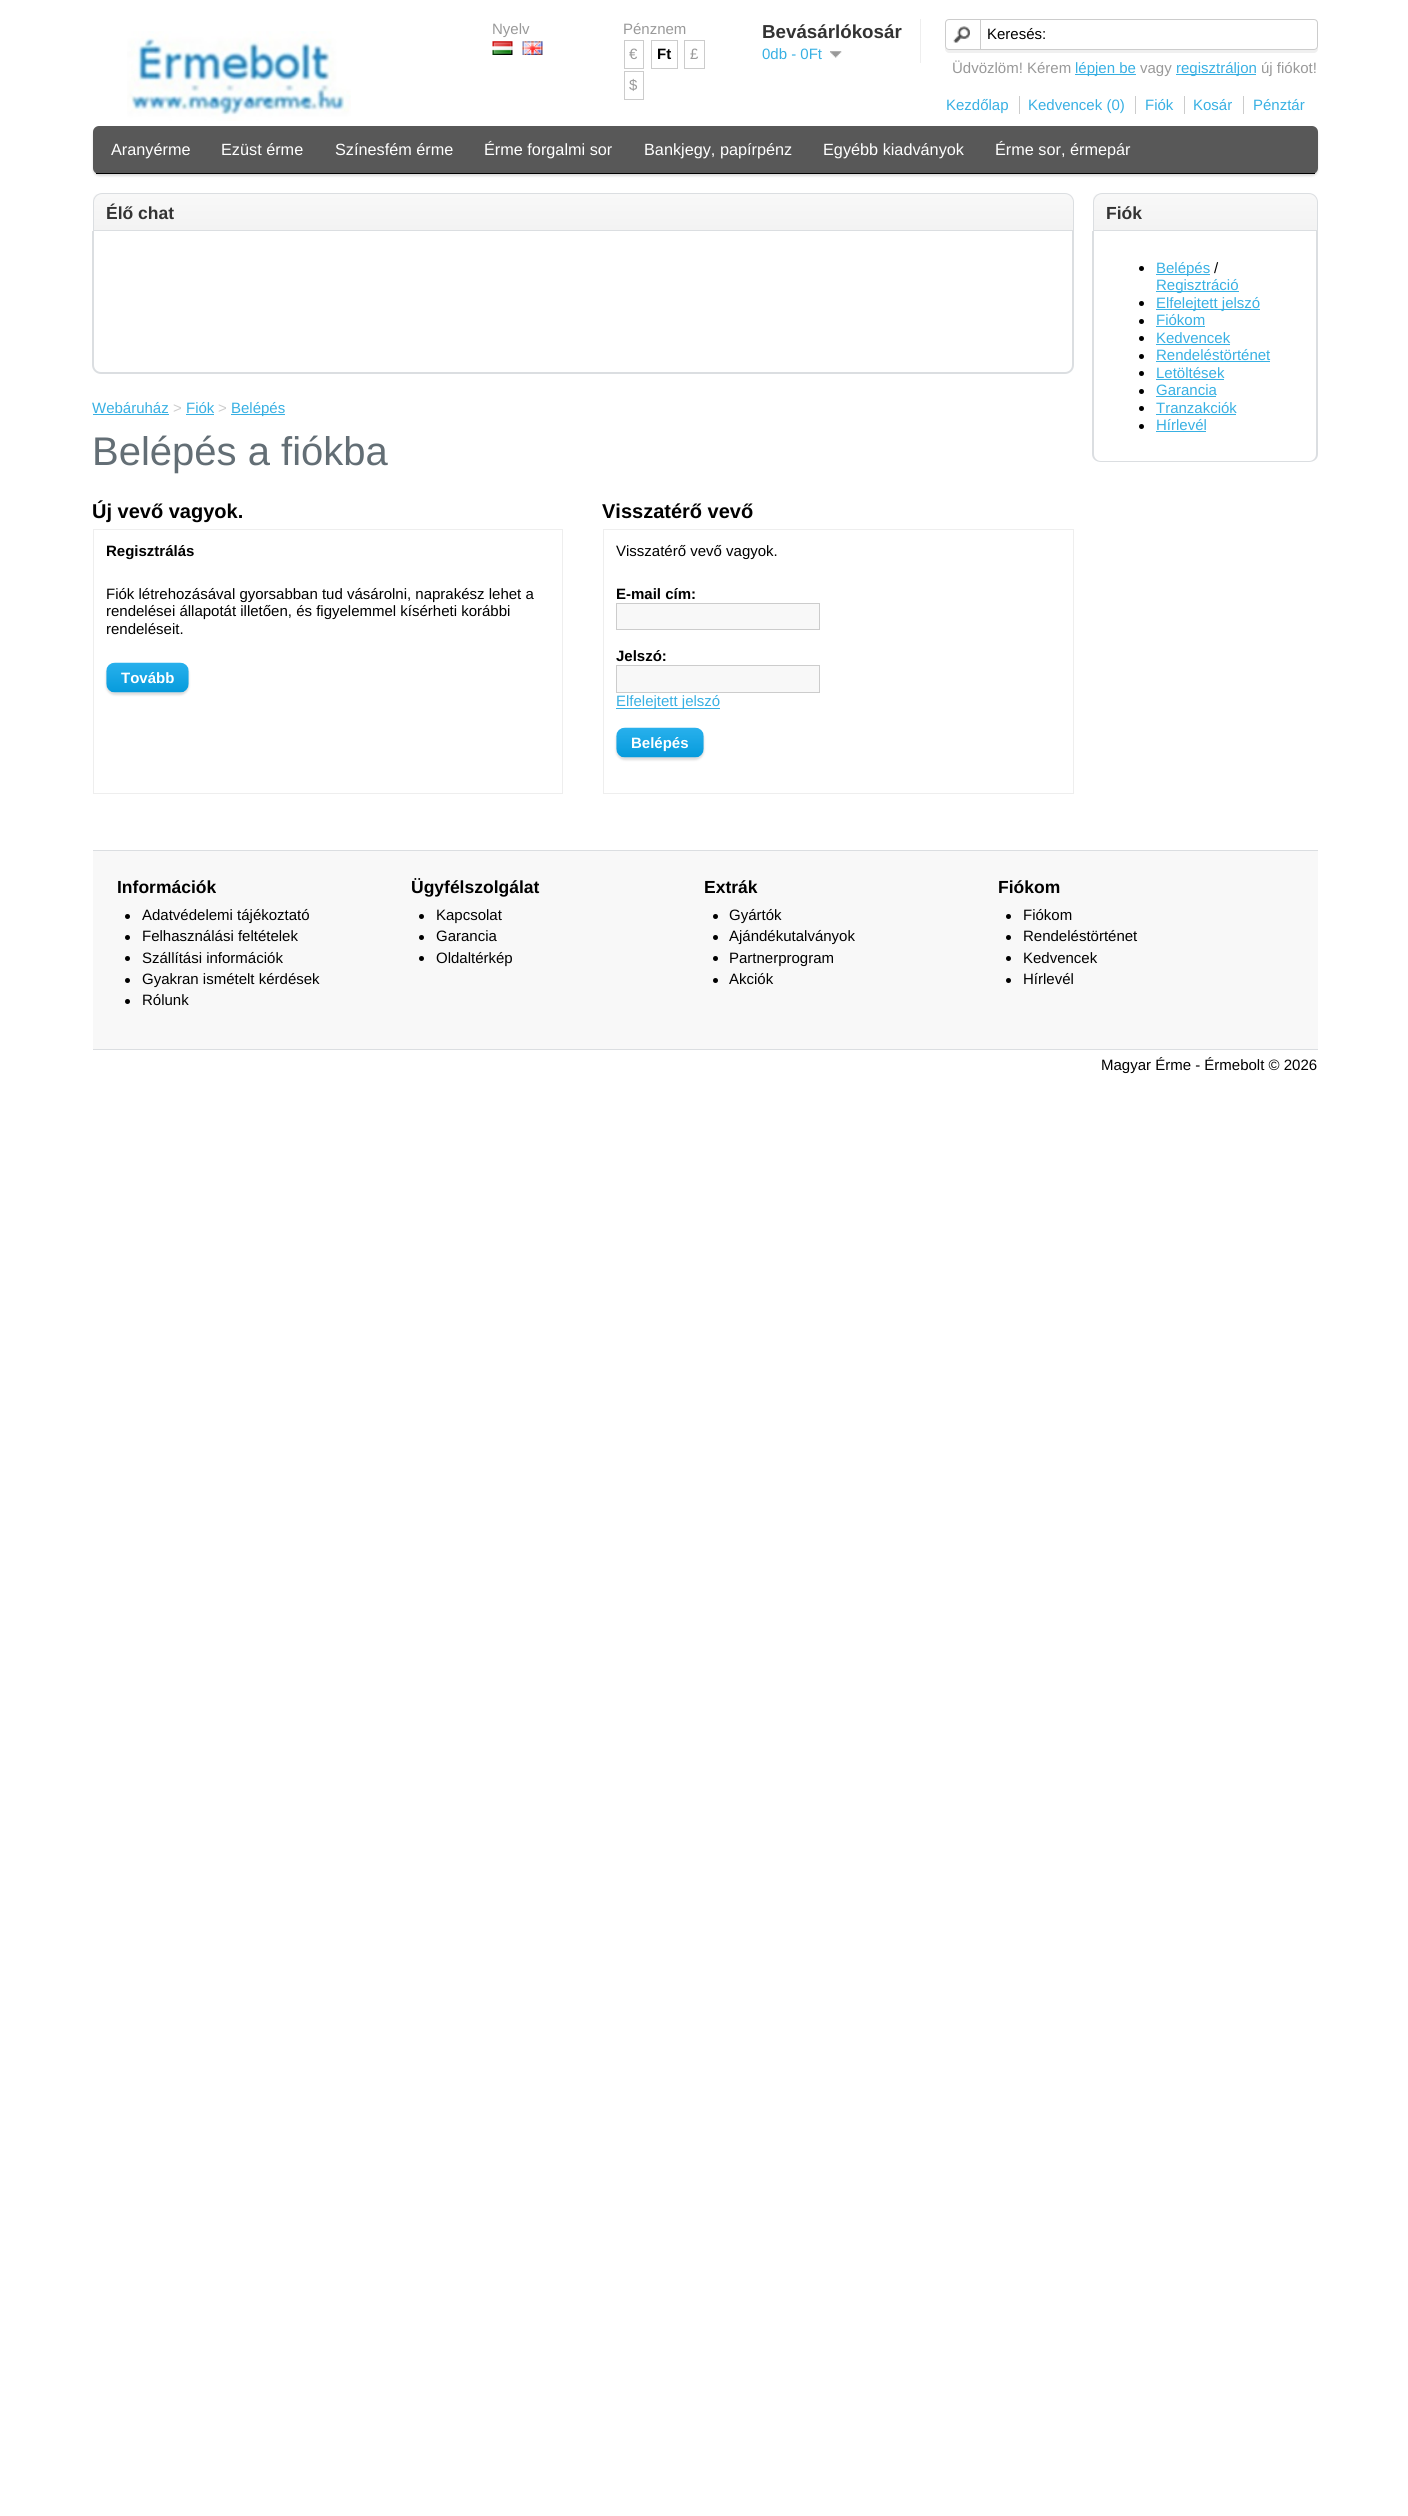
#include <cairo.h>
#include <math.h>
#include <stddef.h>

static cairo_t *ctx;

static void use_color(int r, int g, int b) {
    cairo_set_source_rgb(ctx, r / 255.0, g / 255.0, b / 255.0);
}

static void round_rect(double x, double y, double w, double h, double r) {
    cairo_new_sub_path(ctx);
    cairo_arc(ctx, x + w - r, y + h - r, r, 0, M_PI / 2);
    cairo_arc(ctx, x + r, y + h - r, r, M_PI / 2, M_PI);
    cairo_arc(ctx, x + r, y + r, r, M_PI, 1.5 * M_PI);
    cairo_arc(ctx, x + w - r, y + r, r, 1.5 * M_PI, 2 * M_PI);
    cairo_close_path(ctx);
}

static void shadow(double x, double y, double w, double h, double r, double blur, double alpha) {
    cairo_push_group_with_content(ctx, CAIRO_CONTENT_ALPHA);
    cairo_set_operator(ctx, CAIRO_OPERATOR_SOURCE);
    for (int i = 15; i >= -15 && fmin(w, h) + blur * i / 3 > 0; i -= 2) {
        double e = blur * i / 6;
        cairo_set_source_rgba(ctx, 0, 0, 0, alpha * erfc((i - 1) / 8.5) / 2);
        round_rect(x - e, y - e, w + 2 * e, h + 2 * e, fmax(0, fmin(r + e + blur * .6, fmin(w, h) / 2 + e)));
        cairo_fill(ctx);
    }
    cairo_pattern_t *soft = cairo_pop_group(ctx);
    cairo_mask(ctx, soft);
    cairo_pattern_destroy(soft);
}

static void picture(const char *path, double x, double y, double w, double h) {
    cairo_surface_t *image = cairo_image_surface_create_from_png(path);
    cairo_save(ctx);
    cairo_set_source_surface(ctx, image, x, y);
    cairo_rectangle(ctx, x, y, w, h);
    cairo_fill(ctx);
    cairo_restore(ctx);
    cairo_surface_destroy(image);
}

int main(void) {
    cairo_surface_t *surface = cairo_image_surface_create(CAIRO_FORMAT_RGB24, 1408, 2516);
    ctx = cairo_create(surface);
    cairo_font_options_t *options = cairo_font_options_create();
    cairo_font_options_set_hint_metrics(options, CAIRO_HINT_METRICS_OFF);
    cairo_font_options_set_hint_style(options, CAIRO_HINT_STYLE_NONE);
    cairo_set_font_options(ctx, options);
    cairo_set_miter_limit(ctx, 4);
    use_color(255, 255, 255);
    cairo_paint(ctx);
    picture("img1.png", 127, 31, 224, 90);
    cairo_select_font_face(ctx, "Liberation Sans", CAIRO_FONT_SLANT_NORMAL, CAIRO_FONT_WEIGHT_NORMAL);
    cairo_set_font_size(ctx, 15);
    use_color(153, 153, 153);
    cairo_move_to(ctx, 492, 34);
    cairo_show_text(ctx, "Nyelv");
    picture("img2.png", 492, 41, 21, 14);
    picture("img3.png", 522, 41, 21, 14);
    cairo_move_to(ctx, 623, 34);
    cairo_show_text(ctx, "Pénznem");
    cairo_rectangle(ctx, 624.5, 40.5, 19, 28);
    use_color(204, 204, 204);
    cairo_set_line_width(ctx, 1);
    cairo_stroke(ctx);
    use_color(153, 153, 153);
    cairo_move_to(ctx, 629, 59);
    cairo_show_text(ctx, "€");
    cairo_rectangle(ctx, 651.5, 40.5, 26, 28);
    use_color(204, 204, 204);
    cairo_stroke(ctx);
    cairo_select_font_face(ctx, "Liberation Sans", CAIRO_FONT_SLANT_NORMAL, CAIRO_FONT_WEIGHT_BOLD);
    use_color(0, 0, 0);
    cairo_move_to(ctx, 657, 59);
    cairo_show_text(ctx, "Ft");
    cairo_rectangle(ctx, 684.5, 40.5, 20, 28);
    use_color(204, 204, 204);
    cairo_stroke(ctx);
    cairo_select_font_face(ctx, "Liberation Sans", CAIRO_FONT_SLANT_NORMAL, CAIRO_FONT_WEIGHT_NORMAL);
    use_color(153, 153, 153);
    cairo_move_to(ctx, 690, 59);
    cairo_show_text(ctx, "£");
    cairo_rectangle(ctx, 624.5, 71.5, 19, 28);
    use_color(204, 204, 204);
    cairo_stroke(ctx);
    use_color(153, 153, 153);
    cairo_move_to(ctx, 629, 90);
    cairo_show_text(ctx, "$");
    use_color(238, 238, 238);
    cairo_rectangle(ctx, 920, 19, 1, 44);
    cairo_fill(ctx);
    cairo_select_font_face(ctx, "Liberation Sans", CAIRO_FONT_SLANT_NORMAL, CAIRO_FONT_WEIGHT_BOLD);
    cairo_set_font_size(ctx, 18.75);
    use_color(51, 51, 51);
    cairo_move_to(ctx, 762, 38);
    cairo_show_text(ctx, "Bevásárlókosár");
    cairo_select_font_face(ctx, "Liberation Sans", CAIRO_FONT_SLANT_NORMAL, CAIRO_FONT_WEIGHT_NORMAL);
    cairo_set_font_size(ctx, 15);
    use_color(56, 176, 227);
    cairo_move_to(ctx, 762, 59);
    cairo_show_text(ctx, "0db - 0Ft");
    picture("img4.png", 830, 51, 12, 7);
    use_color(240, 240, 240);
    cairo_new_path(ctx);
    cairo_move_to(ctx, 945, 46);
    cairo_line_to(ctx, 945, 49);
    cairo_curve_to(ctx, 945, 51, 947, 53, 949, 53);
    cairo_line_to(ctx, 1314, 53);
    cairo_curve_to(ctx, 1316, 53, 1318, 51, 1318, 49);
    cairo_line_to(ctx, 1318, 25);
    cairo_line_to(ctx, 1318, 23);
    cairo_line_to(ctx, 1318, 46);
    cairo_curve_to(ctx, 1318, 48, 1316, 50, 1314, 50);
    cairo_line_to(ctx, 949, 50);
    cairo_curve_to(ctx, 947, 50, 945, 48, 945, 46);
    cairo_close_path(ctx);
    cairo_fill(ctx);
    use_color(255, 255, 255);
    round_rect(945.5, 19.5, 372, 30, 3.5);
    cairo_fill_preserve(ctx);
    use_color(204, 204, 204);
    cairo_stroke(ctx);
    picture("img5.png", 953, 26, 17, 17);
    cairo_rectangle(ctx, 980, 19, 1, 30);
    cairo_fill(ctx);
    use_color(0, 0, 0);
    cairo_move_to(ctx, 987, 39);
    cairo_show_text(ctx, "Keresés:");
    use_color(153, 153, 153);
    cairo_move_to(ctx, 952, 73);
    cairo_show_text(ctx, "Üdvözlöm! Kérem");
    use_color(56, 176, 227);
    cairo_rectangle(ctx, 1075, 74, 61, 1);
    cairo_fill(ctx);
    cairo_move_to(ctx, 1075, 73);
    cairo_show_text(ctx, "lépjen be");
    use_color(153, 153, 153);
    cairo_move_to(ctx, 1140, 73);
    cairo_show_text(ctx, "vagy");
    use_color(56, 176, 227);
    cairo_rectangle(ctx, 1176, 74, 80, 1);
    cairo_fill(ctx);
    cairo_move_to(ctx, 1176, 73);
    cairo_show_text(ctx, "regisztráljon");
    use_color(153, 153, 153);
    cairo_move_to(ctx, 1261, 73);
    cairo_show_text(ctx, "új fiókot!");
    use_color(56, 176, 227);
    cairo_move_to(ctx, 946, 110);
    cairo_show_text(ctx, "Kezdőlap");
    use_color(204, 204, 204);
    cairo_rectangle(ctx, 1019, 96, 1, 18);
    cairo_fill(ctx);
    use_color(56, 176, 227);
    cairo_move_to(ctx, 1028, 110);
    cairo_show_text(ctx, "Kedvencek (0)");
    use_color(204, 204, 204);
    cairo_rectangle(ctx, 1135, 96, 1, 18);
    cairo_fill(ctx);
    use_color(56, 176, 227);
    cairo_move_to(ctx, 1145, 110);
    cairo_show_text(ctx, "Fiók");
    use_color(204, 204, 204);
    cairo_rectangle(ctx, 1184, 96, 1, 18);
    cairo_fill(ctx);
    use_color(56, 176, 227);
    cairo_move_to(ctx, 1193, 110);
    cairo_show_text(ctx, "Kosár");
    use_color(204, 204, 204);
    cairo_rectangle(ctx, 1243, 96, 1, 18);
    cairo_fill(ctx);
    use_color(56, 176, 227);
    cairo_move_to(ctx, 1253, 110);
    cairo_show_text(ctx, "Pénztár");
    use_color(221, 221, 221);
    shadow(93, 129, 1225, 47, 6, 1, 1);
    use_color(88, 88, 88);
    round_rect(93, 126, 1225, 48, 6);
    cairo_fill(ctx);
    use_color(0, 0, 0);
    cairo_rectangle(ctx, 96, 173, 1219, 1);
    cairo_fill(ctx);
    cairo_set_font_size(ctx, 16.25);
    use_color(255, 255, 255);
    cairo_move_to(ctx, 111, 155);
    cairo_show_text(ctx, "Aranyérme");
    cairo_move_to(ctx, 221, 155);
    cairo_show_text(ctx, "Ezüst érme");
    cairo_move_to(ctx, 335, 155);
    cairo_show_text(ctx, "Színesfém érme");
    cairo_move_to(ctx, 484, 155);
    cairo_show_text(ctx, "Érme forgalmi sor");
    cairo_move_to(ctx, 644, 155);
    cairo_show_text(ctx, "Bankjegy, papírpénz");
    cairo_move_to(ctx, 823, 155);
    cairo_show_text(ctx, "Egyébb kiadványok");
    cairo_move_to(ctx, 995, 155);
    cairo_show_text(ctx, "Érme sor, érmepár");
    picture("img6.png", 93, 194, 981, 36);
    cairo_new_path(ctx);
    cairo_move_to(ctx, 102, 193.5);
    cairo_line_to(ctx, 1065, 193.5);
    cairo_curve_to(ctx, 1069.5, 193.5, 1073.5, 197.5, 1073.5, 202);
    cairo_line_to(ctx, 1073.5, 230.5);
    cairo_line_to(ctx, 93.5, 230.5);
    cairo_line_to(ctx, 93.5, 202);
    cairo_curve_to(ctx, 93.5, 197.5, 97.5, 193.5, 102, 193.5);
    cairo_close_path(ctx);
    use_color(219, 222, 225);
    cairo_stroke(ctx);
    cairo_select_font_face(ctx, "Liberation Sans", CAIRO_FONT_SLANT_NORMAL, CAIRO_FONT_WEIGHT_BOLD);
    cairo_set_font_size(ctx, 17.5);
    use_color(51, 51, 51);
    cairo_move_to(ctx, 106, 219);
    cairo_show_text(ctx, "Élő chat");
    use_color(219, 222, 225);
    cairo_set_fill_rule(ctx, CAIRO_FILL_RULE_EVEN_ODD);
    cairo_new_path(ctx);
    cairo_move_to(ctx, 92, 231);
    cairo_line_to(ctx, 1074, 231);
    cairo_line_to(ctx, 1074, 365);
    cairo_curve_to(ctx, 1074, 370, 1070, 374, 1065, 374);
    cairo_line_to(ctx, 101, 374);
    cairo_curve_to(ctx, 96, 374, 92, 370, 92, 365);
    cairo_close_path(ctx);
    cairo_move_to(ctx, 94, 231);
    cairo_line_to(ctx, 1072, 231);
    cairo_line_to(ctx, 1072, 365);
    cairo_curve_to(ctx, 1072, 369, 1069, 372, 1065, 372);
    cairo_line_to(ctx, 101, 372);
    cairo_curve_to(ctx, 97, 372, 94, 369, 94, 365);
    cairo_close_path(ctx);
    cairo_fill(ctx);
    cairo_select_font_face(ctx, "Liberation Sans", CAIRO_FONT_SLANT_NORMAL, CAIRO_FONT_WEIGHT_NORMAL);
    cairo_set_font_size(ctx, 15);
    use_color(56, 176, 227);
    cairo_move_to(ctx, 92, 413);
    cairo_show_text(ctx, "Webáruház");
    cairo_rectangle(ctx, 93, 414, 76, 1);
    cairo_fill(ctx);
    use_color(204, 204, 204);
    cairo_move_to(ctx, 173, 413);
    cairo_show_text(ctx, ">");
    use_color(56, 176, 227);
    cairo_move_to(ctx, 186, 413);
    cairo_show_text(ctx, "Fiók");
    cairo_rectangle(ctx, 186, 414, 28, 1);
    cairo_fill(ctx);
    use_color(204, 204, 204);
    cairo_move_to(ctx, 218, 413);
    cairo_show_text(ctx, ">");
    use_color(56, 176, 227);
    cairo_rectangle(ctx, 231, 414, 54, 1);
    cairo_fill(ctx);
    cairo_move_to(ctx, 231, 413);
    cairo_show_text(ctx, "Belépés");
    cairo_set_font_size(ctx, 40);
    use_color(99, 110, 117);
    cairo_move_to(ctx, 92, 465);
    cairo_show_text(ctx, "Belépés a fiókba");
    cairo_select_font_face(ctx, "Liberation Sans", CAIRO_FONT_SLANT_NORMAL, CAIRO_FONT_WEIGHT_BOLD);
    cairo_set_font_size(ctx, 20);
    use_color(0, 0, 0);
    cairo_move_to(ctx, 92, 518);
    cairo_show_text(ctx, "Új vevő vagyok.");
    cairo_rectangle(ctx, 93.5, 529.5, 469, 264);
    use_color(238, 238, 238);
    cairo_stroke(ctx);
    cairo_set_font_size(ctx, 15);
    use_color(0, 0, 0);
    cairo_move_to(ctx, 106, 556);
    cairo_show_text(ctx, "Regisztrálás");
    cairo_select_font_face(ctx, "Liberation Sans", CAIRO_FONT_SLANT_NORMAL, CAIRO_FONT_WEIGHT_NORMAL);
    cairo_move_to(ctx, 106, 599);
    cairo_show_text(ctx, "Fiók létrehozásával gyorsabban tud vásárolni, naprakész lehet a");
    cairo_move_to(ctx, 106, 616);
    cairo_show_text(ctx, "rendelései állapotát illetően, és figyelemmel kísérheti korábbi");
    cairo_move_to(ctx, 106, 634);
    cairo_show_text(ctx, "rendeléseit.");
    use_color(221, 221, 221);
    shadow(106, 665, 83, 30, 9, 1, 1);
    picture("img7.png", 106, 662, 83, 31);
    cairo_select_font_face(ctx, "Liberation Sans", CAIRO_FONT_SLANT_NORMAL, CAIRO_FONT_WEIGHT_BOLD);
    use_color(255, 255, 255);
    cairo_move_to(ctx, 121, 683);
    cairo_show_text(ctx, "Tovább");
    cairo_set_font_size(ctx, 20);
    use_color(0, 0, 0);
    cairo_move_to(ctx, 602, 518);
    cairo_show_text(ctx, "Visszatérő vevő");
    cairo_rectangle(ctx, 603.5, 529.5, 470, 264);
    use_color(238, 238, 238);
    cairo_stroke(ctx);
    cairo_select_font_face(ctx, "Liberation Sans", CAIRO_FONT_SLANT_NORMAL, CAIRO_FONT_WEIGHT_NORMAL);
    cairo_set_font_size(ctx, 15);
    use_color(0, 0, 0);
    cairo_move_to(ctx, 616, 556);
    cairo_show_text(ctx, "Visszatérő vevő vagyok.");
    cairo_select_font_face(ctx, "Liberation Sans", CAIRO_FONT_SLANT_NORMAL, CAIRO_FONT_WEIGHT_BOLD);
    cairo_move_to(ctx, 616, 599);
    cairo_show_text(ctx, "E-mail cím:");
    use_color(248, 248, 248);
    cairo_rectangle(ctx, 616.5, 603.5, 203, 26);
    cairo_fill_preserve(ctx);
    use_color(204, 204, 204);
    cairo_stroke(ctx);
    use_color(0, 0, 0);
    cairo_move_to(ctx, 616, 661);
    cairo_show_text(ctx, "Jelszó:");
    use_color(248, 248, 248);
    cairo_rectangle(ctx, 616.5, 665.5, 203, 27);
    cairo_fill_preserve(ctx);
    use_color(204, 204, 204);
    cairo_stroke(ctx);
    use_color(56, 176, 227);
    cairo_rectangle(ctx, 616, 708, 104, 1);
    cairo_fill(ctx);
    cairo_select_font_face(ctx, "Liberation Sans", CAIRO_FONT_SLANT_NORMAL, CAIRO_FONT_WEIGHT_NORMAL);
    cairo_move_to(ctx, 616, 706);
    cairo_show_text(ctx, "Elfelejtett jelszó");
    use_color(221, 221, 221);
    shadow(616, 730, 88, 30, 9, 1, 1);
    picture("img8.png", 616, 727, 88, 31);
    cairo_select_font_face(ctx, "Liberation Sans", CAIRO_FONT_SLANT_NORMAL, CAIRO_FONT_WEIGHT_BOLD);
    use_color(255, 255, 255);
    cairo_move_to(ctx, 631, 748);
    cairo_show_text(ctx, "Belépés");
    picture("img9.png", 1093, 194, 224, 36);
    cairo_new_path(ctx);
    cairo_move_to(ctx, 1102, 193.5);
    cairo_line_to(ctx, 1309, 193.5);
    cairo_curve_to(ctx, 1313.5, 193.5, 1317.5, 197.5, 1317.5, 202);
    cairo_line_to(ctx, 1317.5, 230.5);
    cairo_line_to(ctx, 1093.5, 230.5);
    cairo_line_to(ctx, 1093.5, 202);
    cairo_curve_to(ctx, 1093.5, 197.5, 1097.5, 193.5, 1102, 193.5);
    cairo_close_path(ctx);
    use_color(219, 222, 225);
    cairo_stroke(ctx);
    cairo_set_font_size(ctx, 17.5);
    use_color(51, 51, 51);
    cairo_move_to(ctx, 1106, 219);
    cairo_show_text(ctx, "Fiók");
    use_color(219, 222, 225);
    cairo_new_path(ctx);
    cairo_move_to(ctx, 1092, 231);
    cairo_line_to(ctx, 1318, 231);
    cairo_line_to(ctx, 1318, 454);
    cairo_curve_to(ctx, 1318, 459, 1314, 462, 1309, 462);
    cairo_line_to(ctx, 1101, 462);
    cairo_curve_to(ctx, 1096, 462, 1092, 459, 1092, 454);
    cairo_close_path(ctx);
    cairo_move_to(ctx, 1094, 231);
    cairo_line_to(ctx, 1316, 231);
    cairo_line_to(ctx, 1316, 454);
    cairo_curve_to(ctx, 1316, 458, 1313, 461, 1309, 461);
    cairo_line_to(ctx, 1101, 461);
    cairo_curve_to(ctx, 1097, 461, 1094, 458, 1094, 454);
    cairo_close_path(ctx);
    cairo_fill(ctx);
    use_color(0, 0, 0);
    cairo_arc(ctx, 1141.5, 268.5, 2.5, 0, 2 * M_PI);
    cairo_fill(ctx);
    use_color(56, 176, 227);
    cairo_rectangle(ctx, 1156, 274, 54, 1);
    cairo_fill(ctx);
    cairo_select_font_face(ctx, "Liberation Sans", CAIRO_FONT_SLANT_NORMAL, CAIRO_FONT_WEIGHT_NORMAL);
    cairo_set_font_size(ctx, 15);
    cairo_move_to(ctx, 1156, 273);
    cairo_show_text(ctx, "Belépés");
    use_color(0, 0, 0);
    cairo_move_to(ctx, 1214, 273);
    cairo_show_text(ctx, "/");
    use_color(56, 176, 227);
    cairo_rectangle(ctx, 1156, 291, 83, 1);
    cairo_fill(ctx);
    cairo_move_to(ctx, 1156, 290);
    cairo_show_text(ctx, "Regisztráció");
    use_color(0, 0, 0);
    cairo_new_path(ctx);
    cairo_arc(ctx, 1141.5, 303.5, 2.5, 0, 2 * M_PI);
    cairo_fill(ctx);
    use_color(56, 176, 227);
    cairo_rectangle(ctx, 1156, 309, 104, 1);
    cairo_fill(ctx);
    cairo_move_to(ctx, 1156, 308);
    cairo_show_text(ctx, "Elfelejtett jelszó");
    use_color(0, 0, 0);
    cairo_new_path(ctx);
    cairo_arc(ctx, 1141.5, 321.5, 2.5, 0, 2 * M_PI);
    cairo_fill(ctx);
    use_color(56, 176, 227);
    cairo_move_to(ctx, 1156, 325);
    cairo_show_text(ctx, "Fiókom");
    cairo_rectangle(ctx, 1156, 326, 49, 1);
    cairo_fill(ctx);
    use_color(0, 0, 0);
    cairo_arc(ctx, 1141.5, 338.5, 2.5, 0, 2 * M_PI);
    cairo_fill(ctx);
    use_color(56, 176, 227);
    cairo_move_to(ctx, 1156, 343);
    cairo_show_text(ctx, "Kedvencek");
    cairo_rectangle(ctx, 1156, 344, 74, 1);
    cairo_fill(ctx);
    use_color(0, 0, 0);
    cairo_arc(ctx, 1141.5, 356.5, 2.5, 0, 2 * M_PI);
    cairo_fill(ctx);
    use_color(56, 176, 227);
    cairo_move_to(ctx, 1156, 360);
    cairo_show_text(ctx, "Rendeléstörténet");
    cairo_rectangle(ctx, 1156, 361, 114, 1);
    cairo_fill(ctx);
    use_color(0, 0, 0);
    cairo_arc(ctx, 1141.5, 373.5, 2.5, 0, 2 * M_PI);
    cairo_fill(ctx);
    use_color(56, 176, 227);
    cairo_move_to(ctx, 1156, 378);
    cairo_show_text(ctx, "Letöltések");
    cairo_rectangle(ctx, 1156, 379, 68, 1);
    cairo_fill(ctx);
    use_color(0, 0, 0);
    cairo_arc(ctx, 1141.5, 391.5, 2.5, 0, 2 * M_PI);
    cairo_fill(ctx);
    use_color(56, 176, 227);
    cairo_move_to(ctx, 1156, 395);
    cairo_show_text(ctx, "Garancia");
    cairo_rectangle(ctx, 1156, 396, 60, 1);
    cairo_fill(ctx);
    use_color(0, 0, 0);
    cairo_arc(ctx, 1141.5, 408.5, 2.5, 0, 2 * M_PI);
    cairo_fill(ctx);
    use_color(56, 176, 227);
    cairo_move_to(ctx, 1156, 413);
    cairo_show_text(ctx, "Tranzakciók");
    cairo_rectangle(ctx, 1156, 414, 80, 1);
    cairo_fill(ctx);
    use_color(0, 0, 0);
    cairo_arc(ctx, 1141.5, 426.5, 2.5, 0, 2 * M_PI);
    cairo_fill(ctx);
    use_color(56, 176, 227);
    cairo_move_to(ctx, 1156, 430);
    cairo_show_text(ctx, "Hírlevél");
    cairo_rectangle(ctx, 1156, 431, 50, 1);
    cairo_fill(ctx);
    use_color(248, 248, 248);
    cairo_rectangle(ctx, 93, 851, 1225, 198);
    cairo_fill(ctx);
    use_color(219, 222, 225);
    cairo_rectangle(ctx, 93, 850, 1225, 1);
    cairo_fill(ctx);
    cairo_rectangle(ctx, 93, 1049, 1225, 1);
    cairo_fill(ctx);
    cairo_select_font_face(ctx, "Liberation Sans", CAIRO_FONT_SLANT_NORMAL, CAIRO_FONT_WEIGHT_BOLD);
    cairo_set_font_size(ctx, 17.5);
    use_color(0, 0, 0);
    cairo_move_to(ctx, 117, 893);
    cairo_show_text(ctx, "Információk");
    cairo_new_path(ctx);
    cairo_arc(ctx, 127.5, 916.5, 2.5, 0, 2 * M_PI);
    cairo_fill(ctx);
    cairo_select_font_face(ctx, "Liberation Sans", CAIRO_FONT_SLANT_NORMAL, CAIRO_FONT_WEIGHT_NORMAL);
    cairo_set_font_size(ctx, 15);
    cairo_move_to(ctx, 142, 920);
    cairo_show_text(ctx, "Adatvédelemi tájékoztató");
    cairo_new_path(ctx);
    cairo_arc(ctx, 127.5, 937.5, 2.5, 0, 2 * M_PI);
    cairo_fill(ctx);
    cairo_move_to(ctx, 142, 941);
    cairo_show_text(ctx, "Felhasználási feltételek");
    cairo_new_path(ctx);
    cairo_arc(ctx, 127.5, 958.5, 2.5, 0, 2 * M_PI);
    cairo_fill(ctx);
    cairo_move_to(ctx, 142, 963);
    cairo_show_text(ctx, "Szállítási információk");
    cairo_new_path(ctx);
    cairo_arc(ctx, 127.5, 980.5, 2.5, 0, 2 * M_PI);
    cairo_fill(ctx);
    cairo_move_to(ctx, 142, 984);
    cairo_show_text(ctx, "Gyakran ismételt kérdések");
    cairo_new_path(ctx);
    cairo_arc(ctx, 127.5, 1001.5, 2.5, 0, 2 * M_PI);
    cairo_fill(ctx);
    cairo_move_to(ctx, 142, 1005);
    cairo_show_text(ctx, "Rólunk");
    cairo_select_font_face(ctx, "Liberation Sans", CAIRO_FONT_SLANT_NORMAL, CAIRO_FONT_WEIGHT_BOLD);
    cairo_set_font_size(ctx, 17.5);
    cairo_move_to(ctx, 411, 893);
    cairo_show_text(ctx, "Ügyfélszolgálat");
    cairo_new_path(ctx);
    cairo_arc(ctx, 421.5, 916.5, 2.5, 0, 2 * M_PI);
    cairo_fill(ctx);
    cairo_select_font_face(ctx, "Liberation Sans", CAIRO_FONT_SLANT_NORMAL, CAIRO_FONT_WEIGHT_NORMAL);
    cairo_set_font_size(ctx, 15);
    cairo_move_to(ctx, 436, 920);
    cairo_show_text(ctx, "Kapcsolat");
    cairo_new_path(ctx);
    cairo_arc(ctx, 421.5, 937.5, 2.5, 0, 2 * M_PI);
    cairo_fill(ctx);
    cairo_move_to(ctx, 436, 941);
    cairo_show_text(ctx, "Garancia");
    cairo_new_path(ctx);
    cairo_arc(ctx, 421.5, 958.5, 2.5, 0, 2 * M_PI);
    cairo_fill(ctx);
    cairo_move_to(ctx, 436, 963);
    cairo_show_text(ctx, "Oldaltérkép");
    cairo_select_font_face(ctx, "Liberation Sans", CAIRO_FONT_SLANT_NORMAL, CAIRO_FONT_WEIGHT_BOLD);
    cairo_set_font_size(ctx, 17.5);
    cairo_move_to(ctx, 704, 893);
    cairo_show_text(ctx, "Extrák");
    cairo_new_path(ctx);
    cairo_arc(ctx, 715.5, 916.5, 2.5, 0, 2 * M_PI);
    cairo_fill(ctx);
    cairo_select_font_face(ctx, "Liberation Sans", CAIRO_FONT_SLANT_NORMAL, CAIRO_FONT_WEIGHT_NORMAL);
    cairo_set_font_size(ctx, 15);
    cairo_move_to(ctx, 729, 920);
    cairo_show_text(ctx, "Gyártók");
    cairo_new_path(ctx);
    cairo_arc(ctx, 715.5, 937.5, 2.5, 0, 2 * M_PI);
    cairo_fill(ctx);
    cairo_move_to(ctx, 729, 941);
    cairo_show_text(ctx, "Ajándékutalványok");
    cairo_new_path(ctx);
    cairo_arc(ctx, 715.5, 958.5, 2.5, 0, 2 * M_PI);
    cairo_fill(ctx);
    cairo_move_to(ctx, 729, 963);
    cairo_show_text(ctx, "Partnerprogram");
    cairo_new_path(ctx);
    cairo_arc(ctx, 715.5, 980.5, 2.5, 0, 2 * M_PI);
    cairo_fill(ctx);
    cairo_move_to(ctx, 729, 984);
    cairo_show_text(ctx, "Akciók");
    cairo_select_font_face(ctx, "Liberation Sans", CAIRO_FONT_SLANT_NORMAL, CAIRO_FONT_WEIGHT_BOLD);
    cairo_set_font_size(ctx, 17.5);
    cairo_move_to(ctx, 998, 893);
    cairo_show_text(ctx, "Fiókom");
    cairo_new_path(ctx);
    cairo_arc(ctx, 1008.5, 916.5, 2.5, 0, 2 * M_PI);
    cairo_fill(ctx);
    cairo_select_font_face(ctx, "Liberation Sans", CAIRO_FONT_SLANT_NORMAL, CAIRO_FONT_WEIGHT_NORMAL);
    cairo_set_font_size(ctx, 15);
    cairo_move_to(ctx, 1023, 920);
    cairo_show_text(ctx, "Fiókom");
    cairo_new_path(ctx);
    cairo_arc(ctx, 1008.5, 937.5, 2.5, 0, 2 * M_PI);
    cairo_fill(ctx);
    cairo_move_to(ctx, 1023, 941);
    cairo_show_text(ctx, "Rendeléstörténet");
    cairo_new_path(ctx);
    cairo_arc(ctx, 1008.5, 958.5, 2.5, 0, 2 * M_PI);
    cairo_fill(ctx);
    cairo_move_to(ctx, 1023, 963);
    cairo_show_text(ctx, "Kedvencek");
    cairo_new_path(ctx);
    cairo_arc(ctx, 1008.5, 980.5, 2.5, 0, 2 * M_PI);
    cairo_fill(ctx);
    cairo_move_to(ctx, 1023, 984);
    cairo_show_text(ctx, "Hírlevél");
    cairo_move_to(ctx, 1101, 1070);
    cairo_show_text(ctx, "Magyar Érme - Érmebolt © 2026");
    cairo_surface_write_to_png(surface, "result.png");
    cairo_font_options_destroy(options);
    cairo_destroy(ctx);
    cairo_surface_destroy(surface);
    return 0;
}
